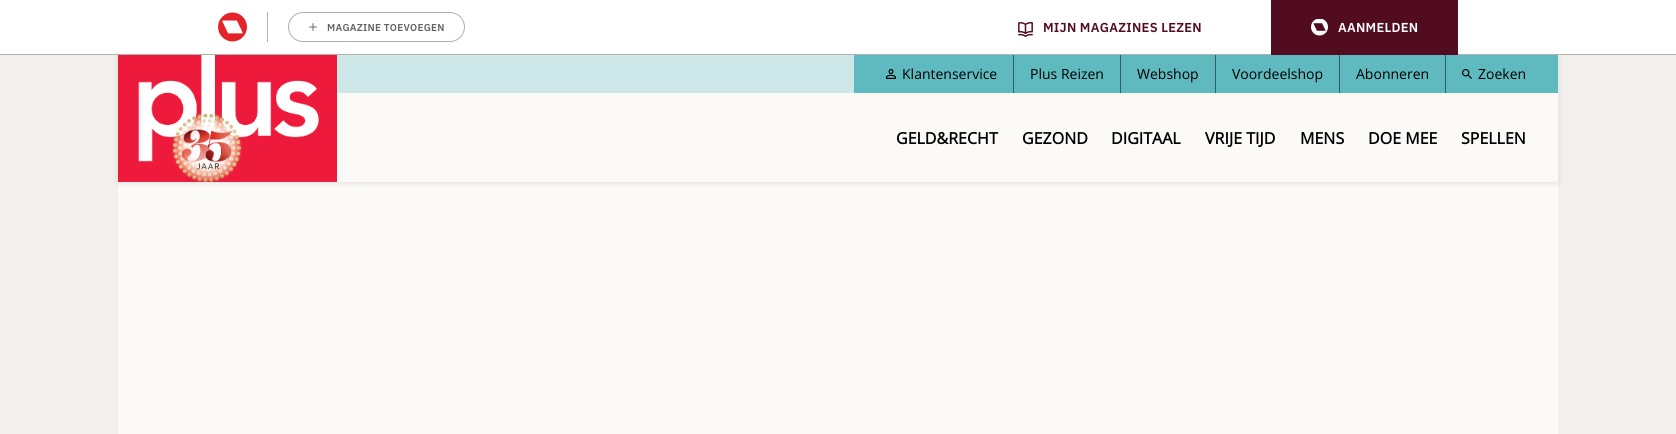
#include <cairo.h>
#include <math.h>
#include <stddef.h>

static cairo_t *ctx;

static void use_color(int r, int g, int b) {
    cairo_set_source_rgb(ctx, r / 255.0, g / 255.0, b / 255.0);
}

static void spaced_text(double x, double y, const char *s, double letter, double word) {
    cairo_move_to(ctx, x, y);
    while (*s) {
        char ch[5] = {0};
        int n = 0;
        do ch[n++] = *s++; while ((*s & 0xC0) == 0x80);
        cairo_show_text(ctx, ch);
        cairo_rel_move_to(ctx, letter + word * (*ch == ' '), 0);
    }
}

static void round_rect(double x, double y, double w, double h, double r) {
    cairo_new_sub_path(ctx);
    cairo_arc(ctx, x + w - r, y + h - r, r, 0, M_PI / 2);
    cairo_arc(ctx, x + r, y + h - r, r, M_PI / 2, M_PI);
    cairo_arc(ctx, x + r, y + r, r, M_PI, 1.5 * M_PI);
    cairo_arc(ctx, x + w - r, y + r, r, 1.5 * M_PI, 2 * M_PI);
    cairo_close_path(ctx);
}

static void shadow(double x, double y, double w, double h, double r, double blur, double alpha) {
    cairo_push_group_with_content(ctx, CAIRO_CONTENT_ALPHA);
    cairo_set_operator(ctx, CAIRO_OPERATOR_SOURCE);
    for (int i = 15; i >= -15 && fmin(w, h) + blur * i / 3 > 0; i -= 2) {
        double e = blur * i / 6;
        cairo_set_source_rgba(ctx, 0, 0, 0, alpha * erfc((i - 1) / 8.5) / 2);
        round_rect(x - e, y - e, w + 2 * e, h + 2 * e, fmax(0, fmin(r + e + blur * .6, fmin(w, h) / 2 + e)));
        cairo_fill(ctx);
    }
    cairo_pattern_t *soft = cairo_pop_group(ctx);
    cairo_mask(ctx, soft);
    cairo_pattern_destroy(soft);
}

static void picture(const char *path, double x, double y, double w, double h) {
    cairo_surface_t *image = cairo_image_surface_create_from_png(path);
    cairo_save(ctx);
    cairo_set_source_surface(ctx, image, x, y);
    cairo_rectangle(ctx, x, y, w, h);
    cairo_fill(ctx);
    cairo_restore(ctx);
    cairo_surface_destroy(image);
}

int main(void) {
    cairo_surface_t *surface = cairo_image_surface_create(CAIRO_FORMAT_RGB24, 1676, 434);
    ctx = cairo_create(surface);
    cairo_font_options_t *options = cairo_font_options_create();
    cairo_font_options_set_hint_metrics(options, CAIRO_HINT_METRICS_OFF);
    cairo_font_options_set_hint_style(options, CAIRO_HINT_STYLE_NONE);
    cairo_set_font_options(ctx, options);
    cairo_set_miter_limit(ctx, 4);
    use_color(242, 240, 237);
    cairo_paint(ctx);
    use_color(252, 250, 247);
    cairo_rectangle(ctx, 118, 55, 1440, 379);
    cairo_fill(ctx);
    cairo_save(ctx);
    cairo_set_fill_rule(ctx, CAIRO_FILL_RULE_EVEN_ODD);
    cairo_new_path(ctx);
    cairo_move_to(ctx, 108, 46);
    cairo_line_to(ctx, 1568, 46);
    cairo_line_to(ctx, 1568, 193);
    cairo_line_to(ctx, 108, 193);
    cairo_close_path(ctx);
    cairo_move_to(ctx, 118, 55);
    cairo_line_to(ctx, 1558, 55);
    cairo_line_to(ctx, 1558, 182);
    cairo_line_to(ctx, 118, 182);
    cairo_close_path(ctx);
    cairo_clip(ctx);
    use_color(0, 0, 0);
    shadow(118, 56, 1440, 127, 0, 3, 0.1);
    cairo_restore(ctx);
    use_color(255, 255, 255);
    cairo_rectangle(ctx, 0, 0, 1676, 54);
    cairo_fill(ctx);
    use_color(178, 178, 178);
    cairo_rectangle(ctx, 0, 54, 1676, 1);
    cairo_fill(ctx);
    use_color(178, 177, 177);
    cairo_rectangle(ctx, 267, 12, 1, 30);
    cairo_fill(ctx);
    picture("img1.png", 218, 12, 29, 30);
    round_rect(288.5, 12.5, 176, 29, 14.5);
    cairo_set_line_width(ctx, 1);
    cairo_stroke(ctx);
    picture("img2.png", 309, 23, 8, 8);
    cairo_select_font_face(ctx, "IBM Plex Sans SemiBold", CAIRO_FONT_SLANT_NORMAL, CAIRO_FONT_WEIGHT_NORMAL);
    cairo_set_font_size(ctx, 10);
    use_color(100, 99, 99);
    spaced_text(327, 31, "MAGAZINE TOEVOEGEN", 0.25, 0);
    picture("img3.png", 1018, 22, 15, 15);
    cairo_set_font_size(ctx, 13);
    use_color(82, 12, 32);
    spaced_text(1043, 32, "MIJN MAGAZINES LEZEN", 0.25, 0);
    cairo_rectangle(ctx, 1271, 0, 187, 55);
    cairo_fill(ctx);
    picture("img4.png", 1311, 19, 17, 17);
    use_color(255, 255, 255);
    spaced_text(1338, 32, "AANMELDEN", 0.25, 0);
    picture("img5.png", 118, 55, 219, 127);
    use_color(206, 231, 232);
    cairo_rectangle(ctx, 337, 55, 517, 38);
    cairo_fill(ctx);
    use_color(94, 186, 191);
    cairo_rectangle(ctx, 854, 55, 704, 38);
    cairo_fill(ctx);
    picture("img6.png", 886, 69, 10, 10);
    cairo_select_font_face(ctx, "Open Sans", CAIRO_FONT_SLANT_NORMAL, CAIRO_FONT_WEIGHT_NORMAL);
    cairo_set_font_size(ctx, 14);
    use_color(0, 0, 0);
    cairo_move_to(ctx, 902, 79);
    cairo_show_text(ctx, "Klantenservice");
    use_color(47, 93, 96);
    cairo_rectangle(ctx, 1013, 55, 1, 38);
    cairo_fill(ctx);
    use_color(0, 0, 0);
    cairo_move_to(ctx, 1030, 79);
    cairo_show_text(ctx, "Plus Reizen");
    use_color(47, 93, 96);
    cairo_rectangle(ctx, 1120, 55, 1, 38);
    cairo_fill(ctx);
    use_color(0, 0, 0);
    cairo_move_to(ctx, 1137, 79);
    cairo_show_text(ctx, "Webshop");
    use_color(47, 93, 96);
    cairo_rectangle(ctx, 1215, 55, 1, 38);
    cairo_fill(ctx);
    use_color(0, 0, 0);
    cairo_move_to(ctx, 1232, 79);
    cairo_show_text(ctx, "Voordeelshop");
    use_color(47, 93, 96);
    cairo_rectangle(ctx, 1339, 55, 1, 38);
    cairo_fill(ctx);
    use_color(0, 0, 0);
    cairo_move_to(ctx, 1356, 79);
    cairo_show_text(ctx, "Abonneren");
    use_color(47, 93, 96);
    cairo_rectangle(ctx, 1445, 55, 1, 38);
    cairo_fill(ctx);
    picture("img7.png", 1462, 69, 10, 10);
    use_color(0, 0, 0);
    cairo_move_to(ctx, 1478, 79);
    cairo_show_text(ctx, "Zoeken");
    cairo_select_font_face(ctx, "Open Sans", CAIRO_FONT_SLANT_NORMAL, CAIRO_FONT_WEIGHT_BOLD);
    cairo_set_font_size(ctx, 16);
    cairo_move_to(ctx, 896, 144);
    cairo_show_text(ctx, "GELD&RECHT");
    cairo_move_to(ctx, 1022, 144);
    cairo_show_text(ctx, "GEZOND");
    cairo_move_to(ctx, 1111, 144);
    cairo_show_text(ctx, "DIGITAAL");
    cairo_move_to(ctx, 1205, 144);
    cairo_show_text(ctx, "VRIJE TIJD");
    cairo_move_to(ctx, 1300, 144);
    cairo_show_text(ctx, "MENS");
    cairo_move_to(ctx, 1368, 144);
    cairo_show_text(ctx, "DOE MEE");
    cairo_move_to(ctx, 1461, 144);
    cairo_show_text(ctx, "SPELLEN");
    cairo_surface_write_to_png(surface, "result.png");
    cairo_font_options_destroy(options);
    cairo_destroy(ctx);
    cairo_surface_destroy(surface);
    return 0;
}
